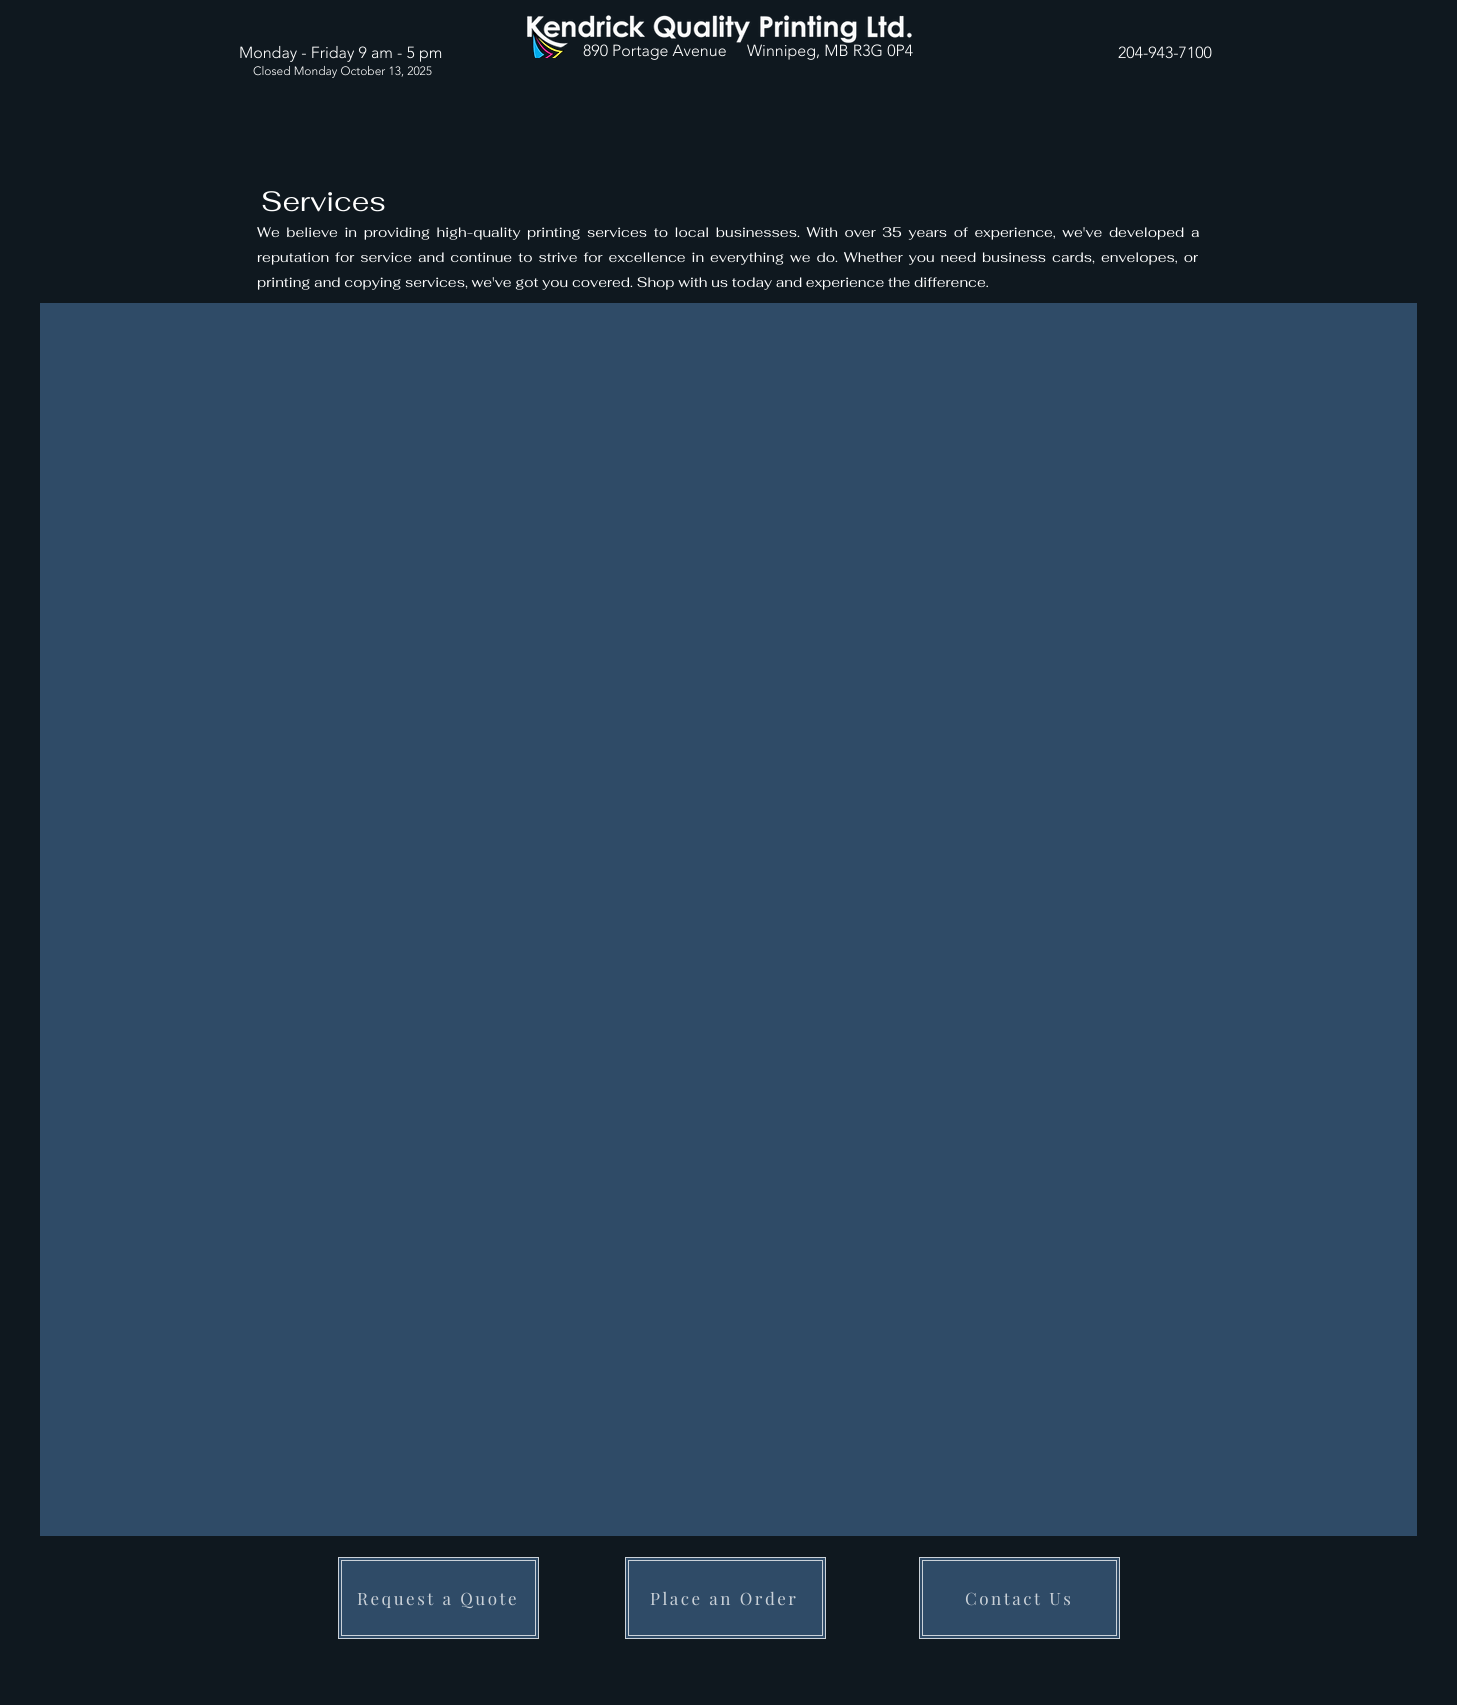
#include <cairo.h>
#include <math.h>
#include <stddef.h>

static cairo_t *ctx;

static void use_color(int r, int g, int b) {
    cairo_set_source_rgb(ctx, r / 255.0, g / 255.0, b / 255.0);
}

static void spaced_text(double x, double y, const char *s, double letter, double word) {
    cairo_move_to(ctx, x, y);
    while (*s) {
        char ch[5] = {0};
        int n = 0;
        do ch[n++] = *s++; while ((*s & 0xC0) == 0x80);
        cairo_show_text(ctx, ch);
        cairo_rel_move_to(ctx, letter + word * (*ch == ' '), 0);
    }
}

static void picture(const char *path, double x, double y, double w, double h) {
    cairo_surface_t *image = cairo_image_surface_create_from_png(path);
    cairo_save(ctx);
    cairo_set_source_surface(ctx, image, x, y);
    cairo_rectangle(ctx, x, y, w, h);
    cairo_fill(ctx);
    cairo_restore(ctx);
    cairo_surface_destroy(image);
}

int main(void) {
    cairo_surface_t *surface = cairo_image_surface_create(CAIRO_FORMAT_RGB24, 1457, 1705);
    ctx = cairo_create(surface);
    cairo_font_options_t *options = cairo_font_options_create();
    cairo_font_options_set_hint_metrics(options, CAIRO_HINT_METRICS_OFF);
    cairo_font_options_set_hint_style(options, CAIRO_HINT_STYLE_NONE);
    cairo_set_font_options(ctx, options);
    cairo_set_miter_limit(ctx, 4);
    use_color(15, 24, 31);
    cairo_paint(ctx);
    picture("img1.png", 527, 15, 385, 43);
    cairo_select_font_face(ctx, "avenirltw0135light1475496 Light", CAIRO_FONT_SLANT_NORMAL, CAIRO_FONT_WEIGHT_NORMAL);
    cairo_set_font_size(ctx, 16);
    use_color(255, 255, 255);
    cairo_move_to(ctx, 239, 58);
    cairo_show_text(ctx, "Monday - Friday 9 am - 5 pm");
    cairo_set_font_size(ctx, 12);
    cairo_move_to(ctx, 253, 75);
    cairo_show_text(ctx, "Closed Monday October 13, 2025");
    cairo_set_font_size(ctx, 16);
    cairo_move_to(ctx, 583, 56);
    cairo_show_text(ctx, "890 Portage Avenue");
    cairo_move_to(ctx, 747, 56);
    cairo_show_text(ctx, "Winnipeg, MB R3G 0P4");
    cairo_move_to(ctx, 1118, 58);
    cairo_show_text(ctx, "204-943-7100");
    cairo_select_font_face(ctx, "Fahkwang", CAIRO_FONT_SLANT_NORMAL, CAIRO_FONT_WEIGHT_NORMAL);
    cairo_set_font_size(ctx, 28);
    cairo_move_to(ctx, 261, 211);
    cairo_show_text(ctx, "Services");
    cairo_set_font_size(ctx, 14);
    spaced_text(257, 237, "We believe in providing high-quality printing services to local businesses. With over 35 years of experience, we've developed a", 0, 2.9);
    spaced_text(257, 262, "reputation for service and continue to strive for excellence in everything we do. Whether you need business cards, envelopes, or", 0, 2.25);
    cairo_move_to(ctx, 257, 287);
    cairo_show_text(ctx, "printing and copying services, we've got you covered. Shop with us today and experience the difference.");
    use_color(47, 75, 103);
    cairo_rectangle(ctx, 40, 303, 1377, 1233);
    cairo_fill(ctx);
    cairo_rectangle(ctx, 338.5, 1557.5, 200, 81);
    cairo_fill_preserve(ctx);
    use_color(203, 210, 217);
    cairo_set_line_width(ctx, 1);
    cairo_stroke(ctx);
    cairo_rectangle(ctx, 341.5, 1560.5, 194, 75);
    cairo_stroke(ctx);
    cairo_select_font_face(ctx, "Playfair Display", CAIRO_FONT_SLANT_NORMAL, CAIRO_FONT_WEIGHT_NORMAL);
    cairo_set_font_size(ctx, 17);
    spaced_text(357, 1605, "Request a Quote", 2.5, 0);
    use_color(47, 75, 103);
    cairo_rectangle(ctx, 625.5, 1557.5, 200, 81);
    cairo_fill_preserve(ctx);
    use_color(203, 210, 217);
    cairo_stroke(ctx);
    cairo_rectangle(ctx, 628.5, 1560.5, 194, 75);
    cairo_stroke(ctx);
    spaced_text(650, 1605, "Place an Order", 2.5, 0);
    use_color(47, 75, 103);
    cairo_rectangle(ctx, 919.5, 1557.5, 200, 81);
    cairo_fill_preserve(ctx);
    use_color(203, 210, 217);
    cairo_stroke(ctx);
    cairo_rectangle(ctx, 922.5, 1560.5, 194, 75);
    cairo_stroke(ctx);
    spaced_text(965, 1605, "Contact Us", 2.5, 0);
    cairo_surface_write_to_png(surface, "result.png");
    cairo_font_options_destroy(options);
    cairo_destroy(ctx);
    cairo_surface_destroy(surface);
    return 0;
}
